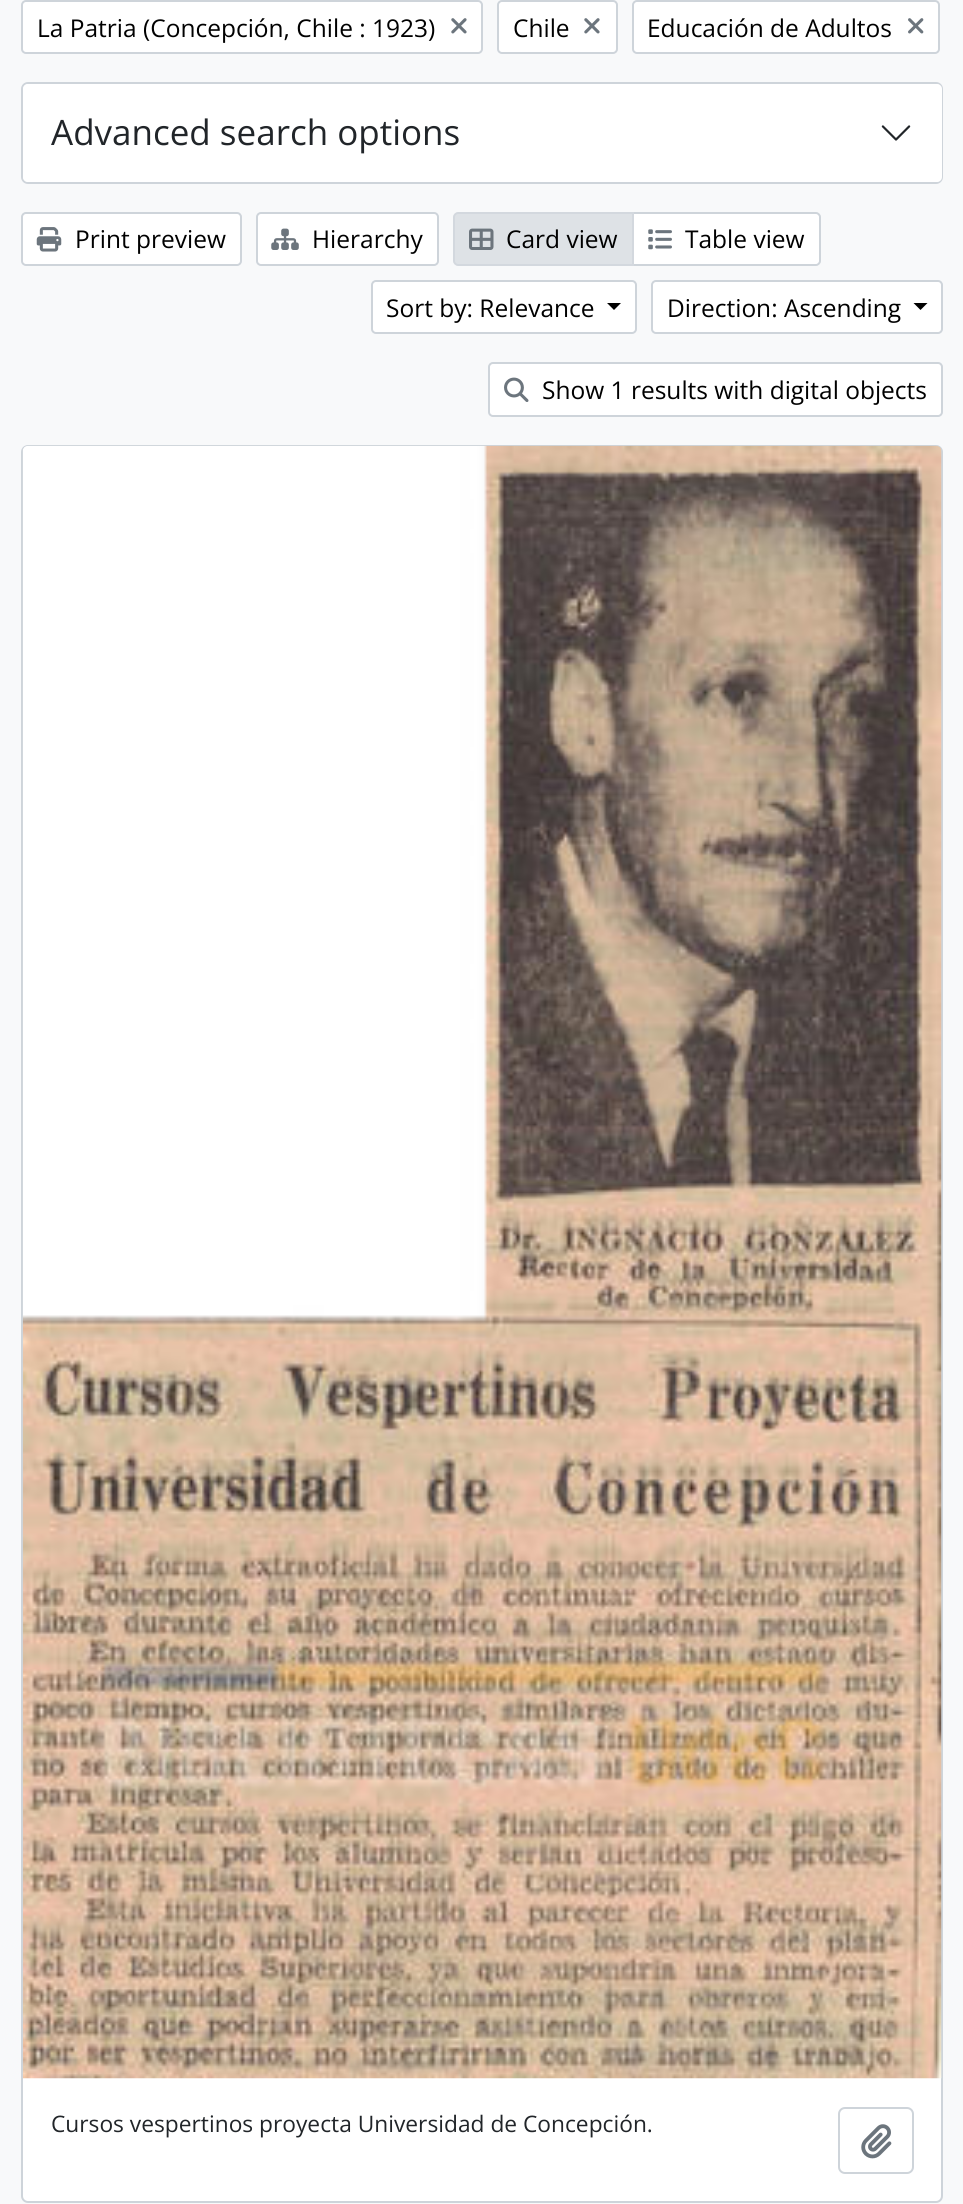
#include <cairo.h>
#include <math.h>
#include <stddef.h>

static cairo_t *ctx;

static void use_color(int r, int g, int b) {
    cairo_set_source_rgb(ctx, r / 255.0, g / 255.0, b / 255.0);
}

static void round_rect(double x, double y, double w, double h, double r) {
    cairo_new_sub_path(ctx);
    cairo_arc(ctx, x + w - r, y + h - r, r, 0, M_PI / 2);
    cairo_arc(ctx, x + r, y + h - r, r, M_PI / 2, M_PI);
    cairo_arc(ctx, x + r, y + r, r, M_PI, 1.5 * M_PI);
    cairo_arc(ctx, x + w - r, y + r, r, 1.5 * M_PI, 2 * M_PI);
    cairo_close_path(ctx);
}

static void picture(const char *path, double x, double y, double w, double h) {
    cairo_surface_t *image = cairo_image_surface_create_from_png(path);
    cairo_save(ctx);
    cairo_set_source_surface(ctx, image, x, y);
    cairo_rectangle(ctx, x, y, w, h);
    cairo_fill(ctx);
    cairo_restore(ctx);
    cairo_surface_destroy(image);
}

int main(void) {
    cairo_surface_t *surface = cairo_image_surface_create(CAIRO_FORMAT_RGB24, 963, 2204);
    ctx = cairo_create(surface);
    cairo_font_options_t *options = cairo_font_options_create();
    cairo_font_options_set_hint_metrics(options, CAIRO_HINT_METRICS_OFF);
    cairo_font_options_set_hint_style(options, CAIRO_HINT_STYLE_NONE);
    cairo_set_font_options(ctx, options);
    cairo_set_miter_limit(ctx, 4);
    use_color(248, 249, 250);
    cairo_paint(ctx);
    use_color(255, 255, 255);
    round_rect(22, 1, 460, 52, 4);
    cairo_fill_preserve(ctx);
    use_color(206, 212, 218);
    cairo_stroke(ctx);
    cairo_select_font_face(ctx, "Open Sans", CAIRO_FONT_SLANT_NORMAL, CAIRO_FONT_WEIGHT_NORMAL);
    cairo_set_font_size(ctx, 24.5);
    use_color(0, 0, 0);
    cairo_move_to(ctx, 37, 37);
    cairo_show_text(ctx, "La Patria (Concepción, Chile : 1923)");
    picture("img1.png", 451, 18, 16, 16);
    use_color(255, 255, 255);
    round_rect(498, 1, 119, 52, 4);
    cairo_fill_preserve(ctx);
    use_color(206, 212, 218);
    cairo_stroke(ctx);
    use_color(0, 0, 0);
    cairo_move_to(ctx, 513, 37);
    cairo_show_text(ctx, "Chile");
    picture("img1.png", 584, 18, 16, 16);
    use_color(255, 255, 255);
    round_rect(633, 1, 306, 52, 4);
    cairo_fill_preserve(ctx);
    use_color(206, 212, 218);
    cairo_stroke(ctx);
    use_color(0, 0, 0);
    cairo_move_to(ctx, 647, 37);
    cairo_show_text(ctx, "Educación de Adultos");
    picture("img2.png", 908, 18, 16, 16);
    round_rect(22, 83, 920, 100, 6);
    use_color(206, 212, 218);
    cairo_stroke(ctx);
    use_color(255, 255, 255);
    round_rect(23, 84, 919, 98, 5);
    cairo_fill(ctx);
    cairo_set_font_size(ctx, 35);
    use_color(33, 37, 41);
    cairo_move_to(ctx, 51, 145);
    cairo_show_text(ctx, "Advanced search options");
    picture("img3.png", 881, 125, 30, 16);
    use_color(255, 255, 255);
    round_rect(22, 213, 219, 52, 4);
    cairo_fill_preserve(ctx);
    use_color(206, 212, 218);
    cairo_stroke(ctx);
    picture("img4.png", 36, 227, 26, 25);
    cairo_set_font_size(ctx, 24.5);
    use_color(0, 0, 0);
    cairo_move_to(ctx, 75, 248);
    cairo_show_text(ctx, "Print preview");
    use_color(255, 255, 255);
    round_rect(257, 213, 181, 52, 4);
    cairo_fill_preserve(ctx);
    use_color(206, 212, 218);
    cairo_stroke(ctx);
    picture("img5.png", 271, 228, 28, 22);
    use_color(0, 0, 0);
    cairo_move_to(ctx, 312, 248);
    cairo_show_text(ctx, "Hierarchy");
    use_color(255, 255, 255);
    cairo_new_path(ctx);
    cairo_move_to(ctx, 633, 213);
    cairo_line_to(ctx, 816, 213);
    cairo_curve_to(ctx, 818, 213, 820, 215, 820, 217);
    cairo_line_to(ctx, 820, 261);
    cairo_curve_to(ctx, 820, 263, 818, 265, 816, 265);
    cairo_line_to(ctx, 633, 265);
    cairo_close_path(ctx);
    cairo_fill_preserve(ctx);
    use_color(206, 212, 218);
    cairo_stroke(ctx);
    use_color(222, 226, 230);
    cairo_new_path(ctx);
    cairo_move_to(ctx, 458, 213);
    cairo_line_to(ctx, 633, 213);
    cairo_line_to(ctx, 633, 265);
    cairo_line_to(ctx, 458, 265);
    cairo_curve_to(ctx, 456, 265, 454, 263, 454, 261);
    cairo_line_to(ctx, 454, 217);
    cairo_curve_to(ctx, 454, 215, 456, 213, 458, 213);
    cairo_close_path(ctx);
    cairo_fill_preserve(ctx);
    use_color(211, 216, 222);
    cairo_stroke(ctx);
    picture("img6.png", 469, 228, 25, 22);
    use_color(0, 0, 0);
    cairo_move_to(ctx, 506, 248);
    cairo_show_text(ctx, "Card view");
    picture("img7.png", 648, 229, 24, 21);
    cairo_move_to(ctx, 685, 248);
    cairo_show_text(ctx, "Table view");
    use_color(255, 255, 255);
    round_rect(372, 281, 264, 52, 4);
    cairo_fill_preserve(ctx);
    use_color(206, 212, 218);
    cairo_stroke(ctx);
    use_color(0, 0, 0);
    cairo_move_to(ctx, 386, 317);
    cairo_show_text(ctx, "Sort by: Relevance");
    cairo_new_path(ctx);
    cairo_move_to(ctx, 607, 303);
    cairo_line_to(ctx, 621, 303);
    cairo_line_to(ctx, 614, 310);
    cairo_close_path(ctx);
    cairo_fill(ctx);
    use_color(255, 255, 255);
    round_rect(652, 281, 290, 52, 4);
    cairo_fill_preserve(ctx);
    use_color(206, 212, 218);
    cairo_stroke(ctx);
    use_color(0, 0, 0);
    cairo_move_to(ctx, 667, 317);
    cairo_show_text(ctx, "Direction: Ascending");
    cairo_new_path(ctx);
    cairo_move_to(ctx, 913.5, 303);
    cairo_line_to(ctx, 927.5, 303);
    cairo_line_to(ctx, 920.5, 310);
    cairo_close_path(ctx);
    cairo_fill(ctx);
    use_color(255, 255, 255);
    round_rect(489, 363, 453, 53, 4);
    cairo_fill_preserve(ctx);
    use_color(206, 212, 218);
    cairo_stroke(ctx);
    picture("img8.png", 504, 377, 25, 25);
    use_color(0, 0, 0);
    cairo_move_to(ctx, 542, 399);
    cairo_show_text(ctx, "Show 1 results with digital objects");
    use_color(255, 255, 255);
    round_rect(22, 446, 920, 1756, 6);
    cairo_fill_preserve(ctx);
    use_color(206, 212, 218);
    cairo_stroke(ctx);
    picture("img9.png", 22, 445, 920, 1634);
    cairo_set_font_size(ctx, 22.75);
    use_color(33, 37, 41);
    cairo_move_to(ctx, 51, 2132);
    cairo_show_text(ctx, "Cursos vespertinos proyecta Universidad de Concepción.");
    round_rect(839, 2108, 74, 65, 6);
    use_color(206, 212, 218);
    cairo_stroke(ctx);
    picture("img10.png", 861, 2124, 31, 35);
    cairo_surface_write_to_png(surface, "result.png");
    cairo_font_options_destroy(options);
    cairo_destroy(ctx);
    cairo_surface_destroy(surface);
    return 0;
}
